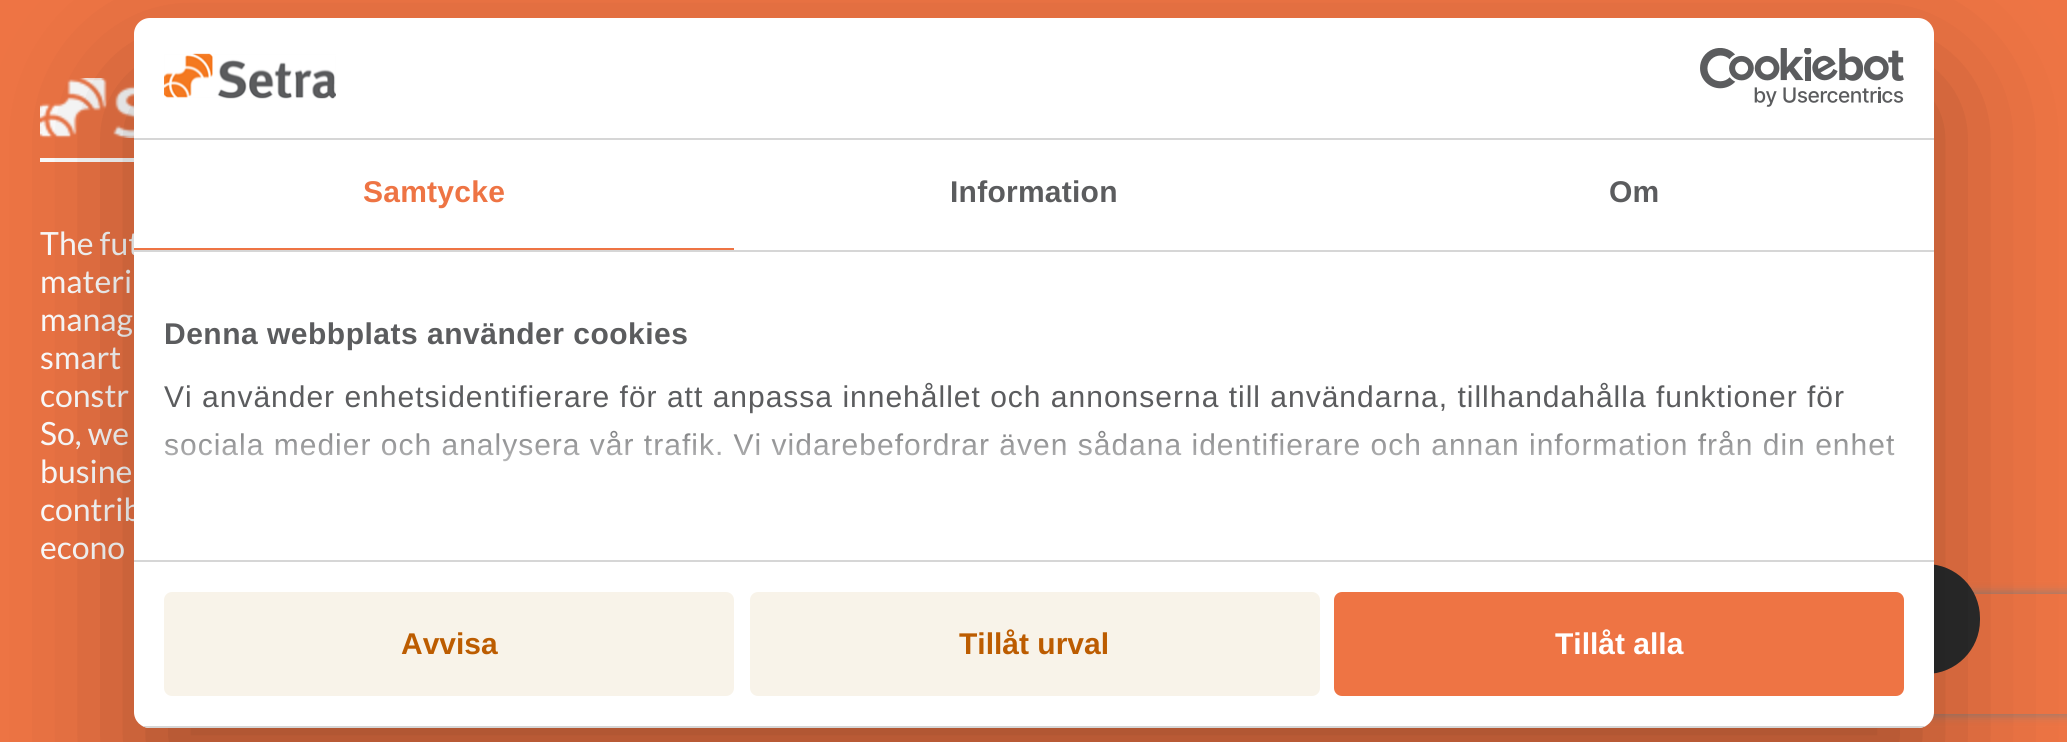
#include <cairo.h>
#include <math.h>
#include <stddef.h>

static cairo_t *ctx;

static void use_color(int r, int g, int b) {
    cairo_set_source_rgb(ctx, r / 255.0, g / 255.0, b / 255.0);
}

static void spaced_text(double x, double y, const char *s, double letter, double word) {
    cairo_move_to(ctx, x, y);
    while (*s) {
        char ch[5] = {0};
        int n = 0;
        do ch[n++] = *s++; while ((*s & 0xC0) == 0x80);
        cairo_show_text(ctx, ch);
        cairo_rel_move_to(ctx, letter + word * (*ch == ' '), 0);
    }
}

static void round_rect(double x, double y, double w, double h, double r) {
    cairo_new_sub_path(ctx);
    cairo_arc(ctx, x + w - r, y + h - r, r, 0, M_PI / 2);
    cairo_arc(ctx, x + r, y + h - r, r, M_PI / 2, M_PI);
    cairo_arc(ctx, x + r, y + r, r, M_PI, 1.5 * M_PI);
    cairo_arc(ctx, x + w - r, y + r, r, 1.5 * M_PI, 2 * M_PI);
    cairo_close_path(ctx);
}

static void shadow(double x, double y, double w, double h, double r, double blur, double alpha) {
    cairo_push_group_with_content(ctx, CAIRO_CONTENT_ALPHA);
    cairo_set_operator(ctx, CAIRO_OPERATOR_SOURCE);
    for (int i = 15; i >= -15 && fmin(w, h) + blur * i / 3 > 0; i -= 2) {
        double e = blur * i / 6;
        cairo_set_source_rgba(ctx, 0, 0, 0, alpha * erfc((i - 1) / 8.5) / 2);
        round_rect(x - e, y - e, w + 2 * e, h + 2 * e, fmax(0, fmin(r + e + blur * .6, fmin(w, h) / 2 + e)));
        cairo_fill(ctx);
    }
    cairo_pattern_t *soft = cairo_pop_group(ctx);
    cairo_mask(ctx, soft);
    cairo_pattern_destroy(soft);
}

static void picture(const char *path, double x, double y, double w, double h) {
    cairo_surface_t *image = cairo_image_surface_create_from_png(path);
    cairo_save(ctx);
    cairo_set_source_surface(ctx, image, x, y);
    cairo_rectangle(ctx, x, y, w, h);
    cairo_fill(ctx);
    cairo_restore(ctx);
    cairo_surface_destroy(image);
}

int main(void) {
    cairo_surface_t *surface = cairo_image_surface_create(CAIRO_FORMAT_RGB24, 2067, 742);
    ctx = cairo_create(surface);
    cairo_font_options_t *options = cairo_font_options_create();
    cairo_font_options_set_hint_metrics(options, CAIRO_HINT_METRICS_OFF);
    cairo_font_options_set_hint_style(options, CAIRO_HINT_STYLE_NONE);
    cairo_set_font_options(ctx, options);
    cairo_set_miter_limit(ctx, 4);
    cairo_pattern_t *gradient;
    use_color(238, 116, 68);
    cairo_paint(ctx);
    use_color(255, 255, 255);
    cairo_rectangle(ctx, 40, 158, 94, 4);
    cairo_fill(ctx);
    picture("img1.png", 40, 78, 94, 60);
    cairo_select_font_face(ctx, "Lato", CAIRO_FONT_SLANT_NORMAL, CAIRO_FONT_WEIGHT_NORMAL);
    cairo_set_font_size(ctx, 32);
    cairo_move_to(ctx, 40, 255);
    cairo_show_text(ctx, "The fut");
    cairo_move_to(ctx, 40, 293);
    cairo_show_text(ctx, "materi");
    cairo_move_to(ctx, 40, 331);
    cairo_show_text(ctx, "manag");
    cairo_move_to(ctx, 40, 369);
    cairo_show_text(ctx, "smart");
    cairo_move_to(ctx, 40, 407);
    cairo_show_text(ctx, "constr");
    cairo_move_to(ctx, 40, 445);
    cairo_show_text(ctx, "So, we");
    cairo_move_to(ctx, 40, 483);
    cairo_show_text(ctx, "busine");
    cairo_move_to(ctx, 40, 521);
    cairo_show_text(ctx, "contrib");
    cairo_move_to(ctx, 40, 559);
    cairo_show_text(ctx, "econo");
    cairo_save(ctx);
    cairo_set_fill_rule(ctx, CAIRO_FILL_RULE_EVEN_ODD);
    cairo_new_path(ctx);
    cairo_move_to(ctx, 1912, 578);
    cairo_line_to(ctx, 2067, 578);
    cairo_line_to(ctx, 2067, 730);
    cairo_line_to(ctx, 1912, 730);
    cairo_close_path(ctx);
    cairo_move_to(ctx, 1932, 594);
    cairo_line_to(ctx, 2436, 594);
    cairo_curve_to(ctx, 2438, 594, 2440, 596, 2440, 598);
    cairo_line_to(ctx, 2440, 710);
    cairo_curve_to(ctx, 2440, 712, 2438, 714, 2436, 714);
    cairo_line_to(ctx, 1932, 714);
    cairo_curve_to(ctx, 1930, 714, 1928, 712, 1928, 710);
    cairo_line_to(ctx, 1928, 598);
    cairo_curve_to(ctx, 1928, 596, 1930, 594, 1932, 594);
    cairo_close_path(ctx);
    cairo_clip(ctx);
    use_color(128, 128, 128);
    shadow(1928, 594, 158, 120, 4, 5, 1);
    cairo_restore(ctx);
    use_color(43, 43, 43);
    round_rect(1612, 564, 368, 110, 54);
    cairo_fill(ctx);
    use_color(0, 0, 0);
    shadow(134, 82, 1800, 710, 16, 68, 0.3);
    use_color(255, 255, 255);
    round_rect(134, 18, 1800, 710, 16);
    cairo_fill(ctx);
    use_color(214, 214, 214);
    cairo_rectangle(ctx, 134, 138, 1800, 2);
    cairo_fill(ctx);
    picture("img2.png", 164, 53, 172, 46);
    picture("img3.png", 1700, 48, 204, 59);
    cairo_rectangle(ctx, 134, 250, 1800, 2);
    cairo_fill(ctx);
    use_color(238, 116, 68);
    cairo_rectangle(ctx, 134, 248, 600, 2);
    cairo_fill(ctx);
    cairo_select_font_face(ctx, "Liberation Sans", CAIRO_FONT_SLANT_NORMAL, CAIRO_FONT_WEIGHT_BOLD);
    cairo_set_font_size(ctx, 30);
    spaced_text(363, 202, "Samtycke", 0.25, 0);
    use_color(91, 92, 94);
    spaced_text(950, 202, "Information", 0.25, 0);
    spaced_text(1609, 202, "Om", 0.25, 0);
    use_color(214, 214, 214);
    cairo_rectangle(ctx, 134, 560, 1800, 2);
    cairo_fill(ctx);
    use_color(91, 92, 94);
    spaced_text(164, 344, "Denna webbplats använder cookies", 0.5, 0);
    cairo_select_font_face(ctx, "Liberation Sans", CAIRO_FONT_SLANT_NORMAL, CAIRO_FONT_WEIGHT_NORMAL);
    spaced_text(164, 407, "Vi använder enhetsidentifierare för att anpassa innehållet och annonserna till användarna, tillhandahålla funktioner för", 1, 0);
    spaced_text(164, 455, "sociala medier och analysera vår trafik. Vi vidarebefordrar även sådana identifierare och annan information från din enhet", 1, 0);
    gradient = cairo_pattern_create_linear(1021, 559, 1021, 409);
    cairo_pattern_add_color_stop_rgba(gradient, 0, 1, 1, 1, 1);
    cairo_pattern_add_color_stop_rgba(gradient, 0.5, 1, 1, 1, 0.8);
    cairo_pattern_add_color_stop_rgba(gradient, 1, 1, 1, 1, 0);
    cairo_set_source(ctx, gradient);
    cairo_pattern_destroy(gradient);
    cairo_rectangle(ctx, 164, 411, 1730, 51);
    cairo_fill(ctx);
    cairo_save(ctx);
    round_rect(134, 18, 1800, 710, 16);
    cairo_clip(ctx);
    use_color(214, 214, 214);
    cairo_rectangle(ctx, 134, 726, 1800, 2);
    cairo_fill(ctx);
    cairo_restore(ctx);
    use_color(248, 243, 233);
    round_rect(166, 594, 566, 100, 6);
    cairo_fill_preserve(ctx);
    cairo_set_line_width(ctx, 4);
    cairo_stroke(ctx);
    cairo_select_font_face(ctx, "Liberation Sans", CAIRO_FONT_SLANT_NORMAL, CAIRO_FONT_WEIGHT_BOLD);
    use_color(188, 92, 0);
    cairo_move_to(ctx, 401, 654);
    cairo_show_text(ctx, "Avvisa");
    use_color(248, 243, 233);
    round_rect(752, 594, 566, 100, 6);
    cairo_fill_preserve(ctx);
    cairo_stroke(ctx);
    use_color(188, 92, 0);
    cairo_move_to(ctx, 959, 654);
    cairo_show_text(ctx, "Tillåt urval");
    use_color(238, 116, 68);
    round_rect(1336, 594, 566, 100, 6);
    cairo_fill_preserve(ctx);
    cairo_stroke(ctx);
    use_color(255, 255, 255);
    cairo_move_to(ctx, 1555, 654);
    cairo_show_text(ctx, "Tillåt alla");
    cairo_surface_write_to_png(surface, "result.png");
    cairo_font_options_destroy(options);
    cairo_destroy(ctx);
    cairo_surface_destroy(surface);
    return 0;
}
